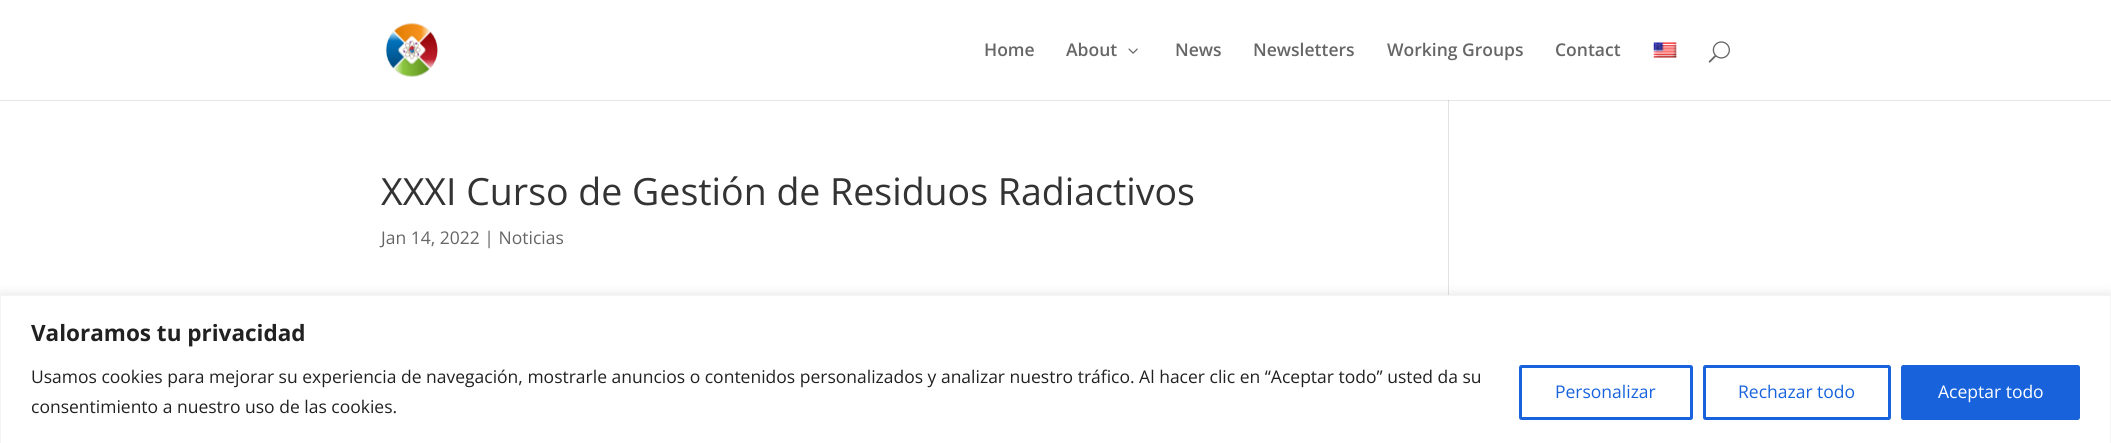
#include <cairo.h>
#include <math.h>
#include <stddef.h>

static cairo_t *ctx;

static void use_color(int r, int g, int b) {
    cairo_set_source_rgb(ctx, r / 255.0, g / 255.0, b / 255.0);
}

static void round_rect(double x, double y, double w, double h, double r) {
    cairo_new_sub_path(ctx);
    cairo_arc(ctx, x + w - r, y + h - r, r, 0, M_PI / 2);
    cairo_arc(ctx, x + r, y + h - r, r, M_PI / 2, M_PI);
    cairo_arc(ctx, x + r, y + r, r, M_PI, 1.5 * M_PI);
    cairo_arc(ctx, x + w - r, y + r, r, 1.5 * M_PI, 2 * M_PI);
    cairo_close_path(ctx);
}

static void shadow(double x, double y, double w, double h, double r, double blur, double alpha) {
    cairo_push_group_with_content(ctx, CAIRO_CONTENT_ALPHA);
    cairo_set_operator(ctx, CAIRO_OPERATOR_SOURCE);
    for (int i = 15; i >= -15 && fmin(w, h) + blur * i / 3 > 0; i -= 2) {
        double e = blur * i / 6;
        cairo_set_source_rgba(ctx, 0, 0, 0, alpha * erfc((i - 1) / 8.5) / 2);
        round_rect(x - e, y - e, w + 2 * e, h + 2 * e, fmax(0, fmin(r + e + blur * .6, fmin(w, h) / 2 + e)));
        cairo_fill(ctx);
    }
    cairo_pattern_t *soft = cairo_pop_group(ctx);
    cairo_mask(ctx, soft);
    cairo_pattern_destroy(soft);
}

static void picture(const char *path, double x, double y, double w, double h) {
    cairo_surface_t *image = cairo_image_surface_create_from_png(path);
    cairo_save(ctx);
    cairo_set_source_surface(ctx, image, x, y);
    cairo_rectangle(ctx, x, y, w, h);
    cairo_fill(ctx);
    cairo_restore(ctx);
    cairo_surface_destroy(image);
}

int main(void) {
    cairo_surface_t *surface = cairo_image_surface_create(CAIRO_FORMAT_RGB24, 2111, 443);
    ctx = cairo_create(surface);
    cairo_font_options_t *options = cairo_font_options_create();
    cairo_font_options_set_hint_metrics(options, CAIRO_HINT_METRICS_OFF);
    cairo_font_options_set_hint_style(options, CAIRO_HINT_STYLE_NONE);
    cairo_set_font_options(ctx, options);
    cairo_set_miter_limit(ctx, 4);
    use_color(255, 255, 255);
    cairo_paint(ctx);
    use_color(230, 230, 230);
    cairo_rectangle(ctx, 0, 100, 2111, 1);
    cairo_fill(ctx);
    picture("img1.png", 385, 23, 53, 54);
    cairo_select_font_face(ctx, "Open Sans SemiBold", CAIRO_FONT_SLANT_NORMAL, CAIRO_FONT_WEIGHT_NORMAL);
    cairo_set_font_size(ctx, 17.5);
    use_color(102, 102, 102);
    cairo_move_to(ctx, 984, 56);
    cairo_show_text(ctx, "Home");
    cairo_move_to(ctx, 1066, 56);
    cairo_show_text(ctx, "About");
    picture("img2.png", 1128, 48, 10, 6);
    cairo_move_to(ctx, 1175, 56);
    cairo_show_text(ctx, "News");
    cairo_move_to(ctx, 1253, 56);
    cairo_show_text(ctx, "Newsletters");
    cairo_move_to(ctx, 1387, 56);
    cairo_show_text(ctx, "Working Groups");
    cairo_move_to(ctx, 1555, 56);
    cairo_show_text(ctx, "Contact");
    picture("img3.png", 1653, 42, 24, 16);
    picture("img4.png", 1708, 41, 22, 22);
    cairo_select_font_face(ctx, "Open Sans", CAIRO_FONT_SLANT_NORMAL, CAIRO_FONT_WEIGHT_NORMAL);
    cairo_set_font_size(ctx, 37.5);
    use_color(51, 51, 51);
    cairo_move_to(ctx, 381, 205);
    cairo_show_text(ctx, "XXXI Curso de Gestión de Residuos Radiactivos");
    cairo_set_font_size(ctx, 17.5);
    use_color(102, 102, 102);
    cairo_move_to(ctx, 381, 244);
    cairo_show_text(ctx, "Jan 14, 2022 | Noticias");
    use_color(226, 226, 226);
    cairo_rectangle(ctx, 1448, 100, 1, 195);
    cairo_fill(ctx);
    use_color(203, 203, 203);
    cairo_rectangle(ctx, 1448, 100, 1, 1);
    cairo_fill(ctx);
    use_color(172, 171, 171);
    shadow(0, 294, 2111, 149, 0, 6, 0.3);
    use_color(255, 255, 255);
    cairo_rectangle(ctx, 0.5, 295.5, 2110, 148);
    cairo_fill_preserve(ctx);
    use_color(244, 244, 244);
    cairo_set_line_width(ctx, 1);
    cairo_stroke(ctx);
    cairo_select_font_face(ctx, "Open Sans", CAIRO_FONT_SLANT_NORMAL, CAIRO_FONT_WEIGHT_BOLD);
    cairo_set_font_size(ctx, 22.5);
    use_color(33, 33, 33);
    cairo_move_to(ctx, 31, 341);
    cairo_show_text(ctx, "Valoramos tu privacidad");
    cairo_select_font_face(ctx, "Open Sans", CAIRO_FONT_SLANT_NORMAL, CAIRO_FONT_WEIGHT_NORMAL);
    cairo_set_font_size(ctx, 17.5);
    cairo_move_to(ctx, 31, 383);
    cairo_show_text(ctx, "Usamos cookies para mejorar su experiencia de navegación, mostrarle anuncios o contenidos personalizados y analizar nuestro tráfico. Al hacer clic en “Aceptar todo” usted da su");
    cairo_move_to(ctx, 31, 413);
    cairo_show_text(ctx, "consentimiento a nuestro uso de las cookies.");
    round_rect(1520.5, 366.5, 171, 52, 1);
    use_color(24, 99, 220);
    cairo_set_line_width(ctx, 3);
    cairo_stroke(ctx);
    cairo_move_to(ctx, 1555, 398);
    cairo_show_text(ctx, "Personalizar");
    round_rect(1704.5, 366.5, 185, 52, 1);
    cairo_stroke(ctx);
    cairo_move_to(ctx, 1738, 398);
    cairo_show_text(ctx, "Rechazar todo");
    round_rect(1902.5, 366.5, 176, 52, 1);
    cairo_fill_preserve(ctx);
    cairo_stroke(ctx);
    use_color(255, 255, 255);
    cairo_move_to(ctx, 1938, 398);
    cairo_show_text(ctx, "Aceptar todo");
    cairo_surface_write_to_png(surface, "result.png");
    cairo_font_options_destroy(options);
    cairo_destroy(ctx);
    cairo_surface_destroy(surface);
    return 0;
}
